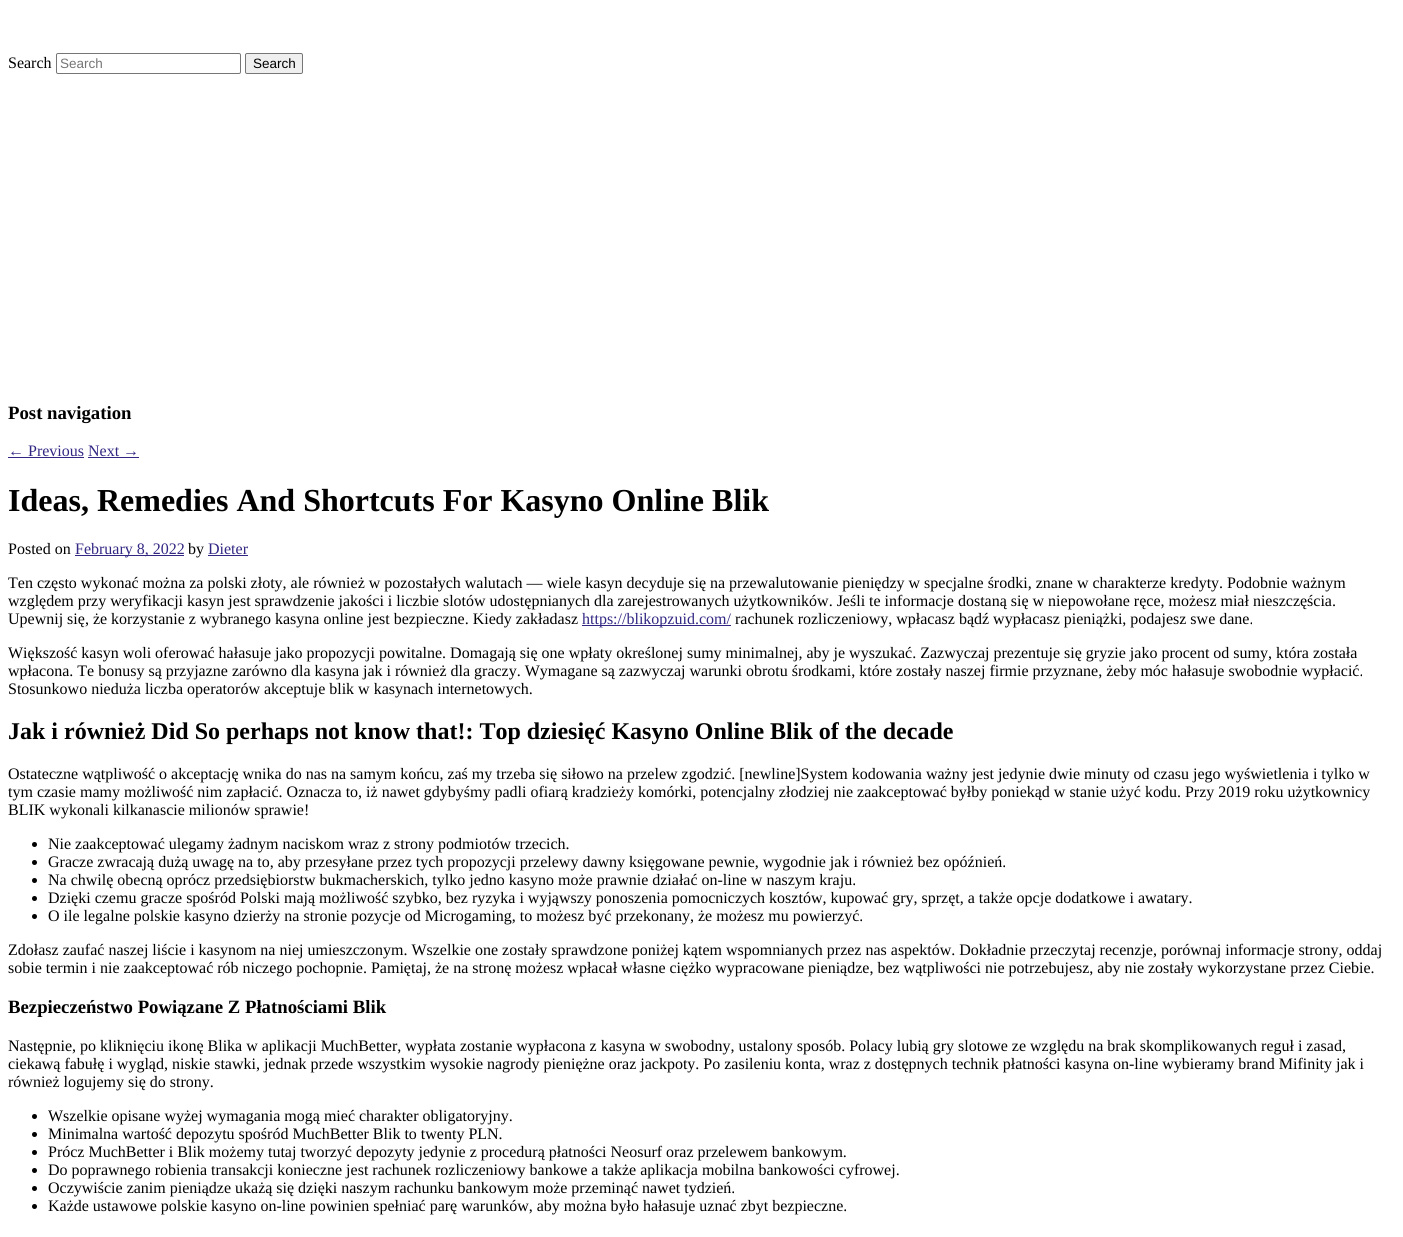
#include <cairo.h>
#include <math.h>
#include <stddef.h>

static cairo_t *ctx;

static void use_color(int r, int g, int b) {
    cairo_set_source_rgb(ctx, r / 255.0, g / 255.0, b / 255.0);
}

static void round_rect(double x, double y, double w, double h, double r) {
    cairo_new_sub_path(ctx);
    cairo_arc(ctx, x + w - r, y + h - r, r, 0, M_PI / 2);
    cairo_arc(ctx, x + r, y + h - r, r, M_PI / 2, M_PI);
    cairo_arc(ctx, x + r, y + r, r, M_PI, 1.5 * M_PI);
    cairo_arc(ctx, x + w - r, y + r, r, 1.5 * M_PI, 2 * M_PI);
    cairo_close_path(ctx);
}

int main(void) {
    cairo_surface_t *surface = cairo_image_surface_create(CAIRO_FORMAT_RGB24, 1403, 1237);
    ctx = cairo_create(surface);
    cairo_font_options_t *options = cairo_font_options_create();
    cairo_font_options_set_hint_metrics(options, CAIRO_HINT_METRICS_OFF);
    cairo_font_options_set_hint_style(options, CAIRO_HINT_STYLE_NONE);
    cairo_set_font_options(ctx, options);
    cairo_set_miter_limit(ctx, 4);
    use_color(255, 255, 255);
    cairo_paint(ctx);
    cairo_select_font_face(ctx, "Liberation Serif", CAIRO_FONT_SLANT_NORMAL, CAIRO_FONT_WEIGHT_NORMAL);
    cairo_set_font_size(ctx, 16);
    use_color(0, 0, 0);
    cairo_move_to(ctx, 8, 68);
    cairo_show_text(ctx, "Search");
    round_rect(56.5, 53.5, 184, 20, 1.5);
    use_color(118, 118, 118);
    cairo_set_line_width(ctx, 1);
    cairo_stroke(ctx);
    cairo_select_font_face(ctx, "Liberation Sans", CAIRO_FONT_SLANT_NORMAL, CAIRO_FONT_WEIGHT_NORMAL);
    cairo_set_font_size(ctx, 13.5);
    use_color(117, 117, 117);
    cairo_move_to(ctx, 60, 68);
    cairo_show_text(ctx, "Search");
    use_color(239, 239, 239);
    round_rect(245.5, 53.5, 57, 20, 1.5);
    cairo_fill_preserve(ctx);
    use_color(118, 118, 118);
    cairo_stroke(ctx);
    use_color(0, 0, 0);
    cairo_move_to(ctx, 253, 68);
    cairo_show_text(ctx, "Search");
    cairo_select_font_face(ctx, "Liberation Serif", CAIRO_FONT_SLANT_NORMAL, CAIRO_FONT_WEIGHT_BOLD);
    cairo_set_font_size(ctx, 18.75);
    cairo_move_to(ctx, 8, 419);
    cairo_show_text(ctx, "Post navigation");
    cairo_select_font_face(ctx, "Liberation Serif", CAIRO_FONT_SLANT_NORMAL, CAIRO_FONT_WEIGHT_NORMAL);
    cairo_set_font_size(ctx, 16);
    use_color(49, 39, 131);
    cairo_move_to(ctx, 8, 456);
    cairo_show_text(ctx, "← Previous Next →");
    cairo_rectangle(ctx, 8, 457, 76, 1);
    cairo_fill(ctx);
    cairo_rectangle(ctx, 88, 457, 51, 1);
    cairo_fill(ctx);
    cairo_select_font_face(ctx, "Liberation Serif", CAIRO_FONT_SLANT_NORMAL, CAIRO_FONT_WEIGHT_BOLD);
    cairo_set_font_size(ctx, 32);
    use_color(0, 0, 0);
    cairo_move_to(ctx, 8, 511);
    cairo_show_text(ctx, "Ideas, Remedies And Shortcuts For Kasyno Online Blik");
    cairo_select_font_face(ctx, "Liberation Serif", CAIRO_FONT_SLANT_NORMAL, CAIRO_FONT_WEIGHT_NORMAL);
    cairo_set_font_size(ctx, 16);
    cairo_move_to(ctx, 8, 554);
    cairo_show_text(ctx, "Posted on");
    use_color(49, 39, 131);
    cairo_rectangle(ctx, 75, 555, 109, 1);
    cairo_fill(ctx);
    cairo_move_to(ctx, 75, 554);
    cairo_show_text(ctx, "February 8, 2022");
    use_color(0, 0, 0);
    cairo_move_to(ctx, 188, 554);
    cairo_show_text(ctx, "by");
    use_color(49, 39, 131);
    cairo_move_to(ctx, 208, 554);
    cairo_show_text(ctx, "Dieter");
    cairo_rectangle(ctx, 208, 555, 40, 1);
    cairo_fill(ctx);
    use_color(0, 0, 0);
    cairo_move_to(ctx, 8, 588);
    cairo_show_text(ctx, "Ten często wykonać można za polski złoty, ale również w pozostałych walutach — wiele kasyn decyduje się na przewalutowanie pieniędzy w specjalne środki, znane w charakterze kredyty. Podobnie ważnym");
    cairo_move_to(ctx, 8, 606);
    cairo_show_text(ctx, "względem przy weryfikacji kasyn jest sprawdzenie jakości i liczbie slotów udostępnianych dla zarejestrowanych użytkowników. Jeśli te informacje dostaną się w niepowołane ręce, możesz miał nieszczęścia.");
    cairo_move_to(ctx, 8, 624);
    cairo_show_text(ctx, "Upewnij się, że korzystanie z wybranego kasyna online jest bezpieczne. Kiedy zakładasz");
    use_color(49, 39, 131);
    cairo_rectangle(ctx, 582, 625, 149, 1);
    cairo_fill(ctx);
    cairo_move_to(ctx, 582, 624);
    cairo_show_text(ctx, "https://blikopzuid.com/");
    use_color(0, 0, 0);
    cairo_move_to(ctx, 735, 624);
    cairo_show_text(ctx, "rachunek rozliczeniowy, wpłacasz bądź wypłacasz pieniążki, podajesz swe dane.");
    cairo_move_to(ctx, 8, 658);
    cairo_show_text(ctx, "Większość kasyn woli oferować hałasuje jako propozycji powitalne. Domagają się one wpłaty określonej sumy minimalnej, aby je wyszukać. Zazwyczaj prezentuje się gryzie jako procent od sumy, która została");
    cairo_move_to(ctx, 8, 676);
    cairo_show_text(ctx, "wpłacona. Te bonusy są przyjazne zarówno dla kasyna jak i również dla graczy. Wymagane są zazwyczaj warunki obrotu środkami, które zostały naszej firmie przyznane, żeby móc hałasuje swobodnie wypłacić.");
    cairo_move_to(ctx, 8, 694);
    cairo_show_text(ctx, "Stosunkowo nieduża liczba operatorów akceptuje blik w kasynach internetowych.");
    cairo_select_font_face(ctx, "Liberation Serif", CAIRO_FONT_SLANT_NORMAL, CAIRO_FONT_WEIGHT_BOLD);
    cairo_set_font_size(ctx, 24);
    cairo_move_to(ctx, 8, 739);
    cairo_show_text(ctx, "Jak i również Did So perhaps not know that!: Top dziesięć Kasyno Online Blik of the decade");
    cairo_select_font_face(ctx, "Liberation Serif", CAIRO_FONT_SLANT_NORMAL, CAIRO_FONT_WEIGHT_NORMAL);
    cairo_set_font_size(ctx, 16);
    cairo_move_to(ctx, 8, 779);
    cairo_show_text(ctx, "Ostateczne wątpliwość o akceptację wnika do nas na samym końcu, zaś my trzeba się siłowo na przelew zgodzić. [newline]System kodowania ważny jest jedynie dwie minuty od czasu jego wyświetlenia i tylko w");
    cairo_move_to(ctx, 8, 797);
    cairo_show_text(ctx, "tym czasie mamy możliwość nim zapłacić. Oznacza to, iż nawet gdybyśmy padli ofiarą kradzieży komórki, potencjalny złodziej nie zaakceptować byłby poniekąd w stanie użyć kodu. Przy 2019 roku użytkownicy");
    cairo_move_to(ctx, 8, 815);
    cairo_show_text(ctx, "BLIK wykonali kilkanascie milionów sprawie!");
    cairo_new_path(ctx);
    cairo_arc(ctx, 34.5, 844.5, 2.5, 0, 2 * M_PI);
    cairo_fill(ctx);
    cairo_move_to(ctx, 48, 849);
    cairo_show_text(ctx, "Nie zaakceptować ulegamy żadnym naciskom wraz z strony podmiotów trzecich.");
    cairo_new_path(ctx);
    cairo_arc(ctx, 34.5, 862.5, 2.5, 0, 2 * M_PI);
    cairo_fill(ctx);
    cairo_move_to(ctx, 48, 867);
    cairo_show_text(ctx, "Gracze zwracają dużą uwagę na to, aby przesyłane przez tych propozycji przelewy dawny księgowane pewnie, wygodnie jak i również bez opóźnień.");
    cairo_new_path(ctx);
    cairo_arc(ctx, 34.5, 880.5, 2.5, 0, 2 * M_PI);
    cairo_fill(ctx);
    cairo_move_to(ctx, 48, 885);
    cairo_show_text(ctx, "Na chwilę obecną oprócz przedsiębiorstw bukmacherskich, tylko jedno kasyno może prawnie działać on-line w naszym kraju.");
    cairo_new_path(ctx);
    cairo_arc(ctx, 34.5, 898.5, 2.5, 0, 2 * M_PI);
    cairo_fill(ctx);
    cairo_move_to(ctx, 48, 903);
    cairo_show_text(ctx, "Dzięki czemu gracze spośród Polski mają możliwość szybko, bez ryzyka i wyjąwszy ponoszenia pomocniczych kosztów, kupować gry, sprzęt, a także opcje dodatkowe i awatary.");
    cairo_new_path(ctx);
    cairo_arc(ctx, 34.5, 916.5, 2.5, 0, 2 * M_PI);
    cairo_fill(ctx);
    cairo_move_to(ctx, 48, 921);
    cairo_show_text(ctx, "O ile legalne polskie kasyno dzierży na stronie pozycje od Microgaming, to możesz być przekonany, że możesz mu powierzyć.");
    cairo_move_to(ctx, 8, 955);
    cairo_show_text(ctx, "Zdołasz zaufać naszej liście i kasynom na niej umieszczonym. Wszelkie one zostały sprawdzone poniżej kątem wspomnianych przez nas aspektów. Dokładnie przeczytaj recenzje, porównaj informacje strony, oddaj");
    cairo_move_to(ctx, 8, 973);
    cairo_show_text(ctx, "sobie termin i nie zaakceptować rób niczego pochopnie. Pamiętaj, że na stronę możesz wpłacał własne ciężko wypracowane pieniądze, bez wątpliwości nie potrzebujesz, aby nie zostały wykorzystane przez Ciebie.");
    cairo_select_font_face(ctx, "Liberation Serif", CAIRO_FONT_SLANT_NORMAL, CAIRO_FONT_WEIGHT_BOLD);
    cairo_set_font_size(ctx, 18.75);
    cairo_move_to(ctx, 8, 1013);
    cairo_show_text(ctx, "Bezpieczeństwo Powiązane Z Płatnościami Blik");
    cairo_select_font_face(ctx, "Liberation Serif", CAIRO_FONT_SLANT_NORMAL, CAIRO_FONT_WEIGHT_NORMAL);
    cairo_set_font_size(ctx, 16);
    cairo_move_to(ctx, 8, 1051);
    cairo_show_text(ctx, "Następnie, po kliknięciu ikonę Blika w aplikacji MuchBetter, wypłata zostanie wypłacona z kasyna w swobodny, ustalony sposób. Polacy lubią gry slotowe ze względu na brak skomplikowanych reguł i zasad,");
    cairo_move_to(ctx, 8, 1069);
    cairo_show_text(ctx, "ciekawą fabułę i wygląd, niskie stawki, jednak przede wszystkim wysokie nagrody pieniężne oraz jackpoty. Po zasileniu konta, wraz z dostępnych technik płatności kasyna on-line wybieramy brand Mifinity jak i");
    cairo_move_to(ctx, 8, 1087);
    cairo_show_text(ctx, "również logujemy się do strony.");
    cairo_new_path(ctx);
    cairo_arc(ctx, 34.5, 1116.5, 2.5, 0, 2 * M_PI);
    cairo_fill(ctx);
    cairo_move_to(ctx, 48, 1121);
    cairo_show_text(ctx, "Wszelkie opisane wyżej wymagania mogą mieć charakter obligatoryjny.");
    cairo_new_path(ctx);
    cairo_arc(ctx, 34.5, 1134.5, 2.5, 0, 2 * M_PI);
    cairo_fill(ctx);
    cairo_move_to(ctx, 48, 1139);
    cairo_show_text(ctx, "Minimalna wartość depozytu spośród MuchBetter Blik to twenty PLN.");
    cairo_new_path(ctx);
    cairo_arc(ctx, 34.5, 1152.5, 2.5, 0, 2 * M_PI);
    cairo_fill(ctx);
    cairo_move_to(ctx, 48, 1157);
    cairo_show_text(ctx, "Prócz MuchBetter i Blik możemy tutaj tworzyć depozyty jedynie z procedurą płatności Neosurf oraz przelewem bankowym.");
    cairo_new_path(ctx);
    cairo_arc(ctx, 34.5, 1170.5, 2.5, 0, 2 * M_PI);
    cairo_fill(ctx);
    cairo_move_to(ctx, 48, 1175);
    cairo_show_text(ctx, "Do poprawnego robienia transakcji konieczne jest rachunek rozliczeniowy bankowe a także aplikacja mobilna bankowości cyfrowej.");
    cairo_new_path(ctx);
    cairo_arc(ctx, 34.5, 1188.5, 2.5, 0, 2 * M_PI);
    cairo_fill(ctx);
    cairo_move_to(ctx, 48, 1193);
    cairo_show_text(ctx, "Oczywiście zanim pieniądze ukażą się dzięki naszym rachunku bankowym może przeminąć nawet tydzień.");
    cairo_new_path(ctx);
    cairo_arc(ctx, 34.5, 1206.5, 2.5, 0, 2 * M_PI);
    cairo_fill(ctx);
    cairo_move_to(ctx, 48, 1211);
    cairo_show_text(ctx, "Każde ustawowe polskie kasyno on-line powinien spełniać parę warunków, aby można było hałasuje uznać zbyt bezpieczne.");
    cairo_surface_write_to_png(surface, "result.png");
    cairo_font_options_destroy(options);
    cairo_destroy(ctx);
    cairo_surface_destroy(surface);
    return 0;
}
